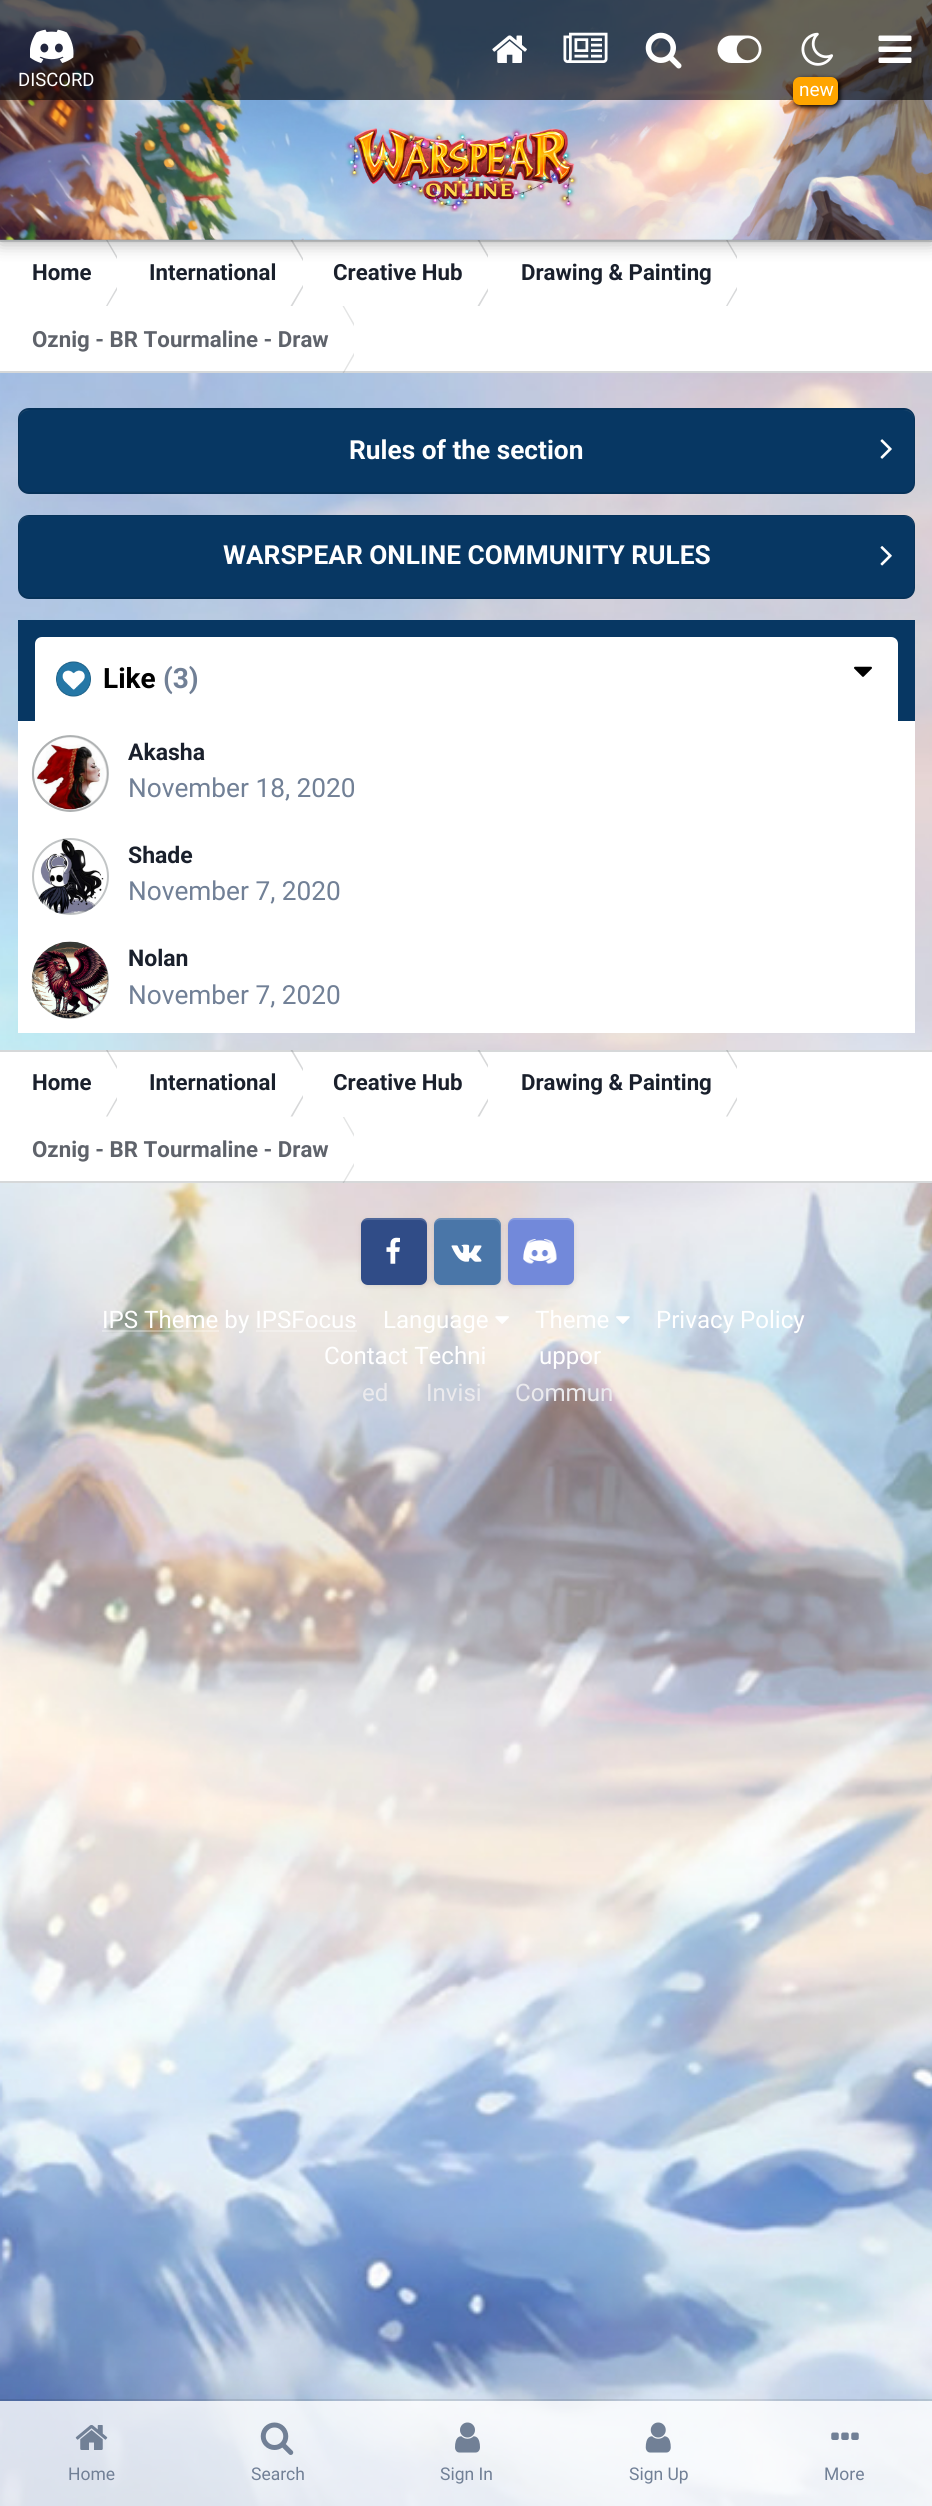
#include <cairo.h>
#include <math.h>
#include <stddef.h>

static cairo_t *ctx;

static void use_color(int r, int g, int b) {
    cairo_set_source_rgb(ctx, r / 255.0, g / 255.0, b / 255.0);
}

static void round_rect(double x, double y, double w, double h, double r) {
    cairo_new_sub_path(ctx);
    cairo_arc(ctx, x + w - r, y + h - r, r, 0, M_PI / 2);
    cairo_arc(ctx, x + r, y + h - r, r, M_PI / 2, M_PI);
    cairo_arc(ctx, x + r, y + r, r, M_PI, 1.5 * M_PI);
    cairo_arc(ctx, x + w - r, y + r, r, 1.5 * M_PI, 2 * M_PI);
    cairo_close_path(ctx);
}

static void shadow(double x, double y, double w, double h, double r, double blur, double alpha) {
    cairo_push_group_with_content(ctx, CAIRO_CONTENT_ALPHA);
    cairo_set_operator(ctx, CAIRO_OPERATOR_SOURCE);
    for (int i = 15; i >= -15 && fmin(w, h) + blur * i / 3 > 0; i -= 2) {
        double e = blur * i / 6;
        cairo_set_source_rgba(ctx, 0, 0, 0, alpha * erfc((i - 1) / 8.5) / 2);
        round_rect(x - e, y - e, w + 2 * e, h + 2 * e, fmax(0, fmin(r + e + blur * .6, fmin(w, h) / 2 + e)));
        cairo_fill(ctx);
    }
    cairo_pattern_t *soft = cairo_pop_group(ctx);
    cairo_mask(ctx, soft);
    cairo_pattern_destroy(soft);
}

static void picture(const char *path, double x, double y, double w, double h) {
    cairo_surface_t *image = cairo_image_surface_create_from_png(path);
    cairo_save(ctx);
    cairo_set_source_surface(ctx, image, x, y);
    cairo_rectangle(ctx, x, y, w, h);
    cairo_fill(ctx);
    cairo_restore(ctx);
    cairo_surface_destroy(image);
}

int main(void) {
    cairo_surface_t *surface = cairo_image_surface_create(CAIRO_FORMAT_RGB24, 932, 2506);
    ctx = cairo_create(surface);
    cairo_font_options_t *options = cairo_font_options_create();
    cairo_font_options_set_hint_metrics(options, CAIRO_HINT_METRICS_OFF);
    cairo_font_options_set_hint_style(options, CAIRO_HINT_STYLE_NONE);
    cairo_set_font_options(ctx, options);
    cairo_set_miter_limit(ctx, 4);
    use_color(255, 255, 255);
    cairo_paint(ctx);
    picture("img1.png", 0, 239, 932, 2267);
    use_color(255, 255, 255);
    cairo_rectangle(ctx, 0, 240, 932, 133);
    cairo_fill(ctx);
    cairo_save(ctx);
    cairo_rectangle(ctx, 0, 240, 117, 66);
    cairo_clip(ctx);
    use_color(215, 216, 217);
    cairo_new_path(ctx);
    cairo_move_to(ctx, 106, 240);
    cairo_line_to(ctx, 107.5, 240);
    cairo_line_to(ctx, 127, 273);
    cairo_line_to(ctx, 125, 273);
    cairo_close_path(ctx);
    cairo_fill(ctx);
    cairo_restore(ctx);
    cairo_save(ctx);
    cairo_rectangle(ctx, 117, 240, 186, 66);
    cairo_clip(ctx);
    use_color(215, 216, 217);
    cairo_new_path(ctx);
    cairo_move_to(ctx, 290.5, 240);
    cairo_line_to(ctx, 292.5, 240);
    cairo_line_to(ctx, 311.5, 273);
    cairo_line_to(ctx, 310, 273);
    cairo_close_path(ctx);
    cairo_fill(ctx);
    cairo_restore(ctx);
    cairo_save(ctx);
    cairo_rectangle(ctx, 303, 240, 185, 66);
    cairo_clip(ctx);
    use_color(215, 216, 217);
    cairo_new_path(ctx);
    cairo_move_to(ctx, 477.5, 240);
    cairo_line_to(ctx, 479.5, 240);
    cairo_line_to(ctx, 498.5, 273);
    cairo_line_to(ctx, 497, 273);
    cairo_close_path(ctx);
    cairo_fill(ctx);
    cairo_restore(ctx);
    cairo_save(ctx);
    cairo_rectangle(ctx, 488, 240, 249, 66);
    cairo_clip(ctx);
    use_color(215, 216, 217);
    cairo_new_path(ctx);
    cairo_move_to(ctx, 726, 240);
    cairo_line_to(ctx, 727.5, 240);
    cairo_line_to(ctx, 747, 273);
    cairo_line_to(ctx, 745, 273);
    cairo_close_path(ctx);
    cairo_fill(ctx);
    cairo_restore(ctx);
    cairo_set_source_rgba(ctx, 0.208, 0.235, 0.255, 0.2);
    cairo_rectangle(ctx, 0, 240, 932, 2);
    cairo_fill(ctx);
    use_color(0, 0, 0);
    shadow(0, 2, 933, 240, 0, 9, 0.35);
    picture("img2.png", 0, 0, 932, 240);
    cairo_set_source_rgba(ctx, 0, 0, 0, 0.6);
    cairo_rectangle(ctx, 0, 0, 932, 100);
    cairo_fill(ctx);
    picture("img3.png", 492, 35, 35, 28);
    picture("img4.png", 563, 32, 45, 31);
    picture("img5.png", 645, 32, 37, 37);
    picture("img6.png", 717, 35, 45, 28);
    picture("img7.png", 878, 35, 34, 28);
    picture("img8.png", 30, 29, 44, 34);
    cairo_select_font_face(ctx, "Roboto", CAIRO_FONT_SLANT_NORMAL, CAIRO_FONT_WEIGHT_NORMAL);
    cairo_set_font_size(ctx, 18.5);
    use_color(255, 255, 255);
    cairo_move_to(ctx, 18, 86);
    cairo_show_text(ctx, "DISCORD");
    picture("img9.png", 801, 32, 33, 34);
    use_color(0, 0, 0);
    shadow(795, 79, 45, 28, 7, 2.5, 1);
    use_color(255, 165, 0);
    round_rect(793, 77, 45, 28, 7);
    cairo_fill(ctx);
    cairo_set_font_size(ctx, 19);
    use_color(255, 255, 255);
    cairo_move_to(ctx, 799, 96);
    cairo_show_text(ctx, "new");
    picture("img10.png", 345, 128, 233, 84);
    cairo_save(ctx);
    cairo_rectangle(ctx, 0, 306, 354, 67);
    cairo_clip(ctx);
    use_color(227, 228, 228);
    cairo_new_path(ctx);
    cairo_move_to(ctx, 342.5, 373);
    cairo_line_to(ctx, 344, 373);
    cairo_line_to(ctx, 363.5, 339.5);
    cairo_line_to(ctx, 361.5, 339.5);
    cairo_close_path(ctx);
    cairo_fill(ctx);
    cairo_restore(ctx);
    cairo_set_source_rgba(ctx, 0.208, 0.235, 0.255, 0.2);
    cairo_rectangle(ctx, 0, 371, 932, 2);
    cairo_fill(ctx);
    cairo_select_font_face(ctx, "Roboto", CAIRO_FONT_SLANT_NORMAL, CAIRO_FONT_WEIGHT_BOLD);
    cairo_set_font_size(ctx, 22.25);
    use_color(26, 32, 44);
    cairo_move_to(ctx, 32, 280);
    cairo_show_text(ctx, "Home");
    cairo_save(ctx);
    cairo_rectangle(ctx, 0, 240, 117, 66);
    cairo_clip(ctx);
    use_color(215, 216, 217);
    cairo_new_path(ctx);
    cairo_move_to(ctx, 106, 306);
    cairo_line_to(ctx, 107.5, 306);
    cairo_line_to(ctx, 127, 273);
    cairo_line_to(ctx, 125, 273);
    cairo_close_path(ctx);
    cairo_fill(ctx);
    cairo_restore(ctx);
    cairo_move_to(ctx, 149, 280);
    cairo_show_text(ctx, "International");
    cairo_save(ctx);
    cairo_rectangle(ctx, 117, 240, 186, 66);
    cairo_clip(ctx);
    use_color(215, 216, 217);
    cairo_new_path(ctx);
    cairo_move_to(ctx, 290.5, 306);
    cairo_line_to(ctx, 292.5, 306);
    cairo_line_to(ctx, 311.5, 273);
    cairo_line_to(ctx, 310, 273);
    cairo_close_path(ctx);
    cairo_fill(ctx);
    cairo_restore(ctx);
    cairo_move_to(ctx, 333, 280);
    cairo_show_text(ctx, "Creative Hub");
    cairo_save(ctx);
    cairo_rectangle(ctx, 303, 240, 185, 66);
    cairo_clip(ctx);
    use_color(215, 216, 217);
    cairo_new_path(ctx);
    cairo_move_to(ctx, 477.5, 306);
    cairo_line_to(ctx, 479.5, 306);
    cairo_line_to(ctx, 498.5, 273);
    cairo_line_to(ctx, 497, 273);
    cairo_close_path(ctx);
    cairo_fill(ctx);
    cairo_restore(ctx);
    cairo_move_to(ctx, 521, 280);
    cairo_show_text(ctx, "Drawing & Painting");
    cairo_save(ctx);
    cairo_rectangle(ctx, 488, 240, 249, 66);
    cairo_clip(ctx);
    use_color(215, 216, 217);
    cairo_new_path(ctx);
    cairo_move_to(ctx, 726, 306);
    cairo_line_to(ctx, 727.5, 306);
    cairo_line_to(ctx, 747, 273);
    cairo_line_to(ctx, 745, 273);
    cairo_close_path(ctx);
    cairo_fill(ctx);
    cairo_restore(ctx);
    cairo_save(ctx);
    cairo_rectangle(ctx, 0, 306, 354, 67);
    cairo_clip(ctx);
    use_color(227, 228, 228);
    cairo_new_path(ctx);
    cairo_move_to(ctx, 342.5, 306);
    cairo_line_to(ctx, 344, 306);
    cairo_line_to(ctx, 363.5, 339.5);
    cairo_line_to(ctx, 361.5, 339.5);
    cairo_close_path(ctx);
    cairo_fill(ctx);
    cairo_restore(ctx);
    use_color(95, 99, 107);
    cairo_move_to(ctx, 32, 347);
    cairo_show_text(ctx, "Oznig - BR Tourmaline - Draw");
    use_color(7, 55, 99);
    round_rect(18, 408, 897, 86, 11);
    cairo_fill(ctx);
    use_color(32, 75, 115);
    cairo_new_path(ctx);
    cairo_move_to(ctx, 28, 411);
    cairo_line_to(ctx, 905, 411);
    cairo_curve_to(ctx, 910, 411, 914, 415, 914, 420);
    cairo_line_to(ctx, 914, 419);
    cairo_curve_to(ctx, 914, 414, 910, 410, 905, 410);
    cairo_line_to(ctx, 28, 410);
    cairo_curve_to(ctx, 23, 410, 19, 414, 19, 419);
    cairo_line_to(ctx, 19, 420);
    cairo_curve_to(ctx, 19, 415, 23, 411, 28, 411);
    cairo_close_path(ctx);
    cairo_fill(ctx);
    round_rect(19, 409, 895, 84, 10);
    cairo_set_source_rgba(ctx, 0, 0, 0, 0.1);
    cairo_stroke(ctx);
    use_color(7, 55, 99);
    round_rect(19, 410, 895, 82, 11);
    cairo_fill(ctx);
    cairo_set_font_size(ctx, 26.25);
    use_color(255, 255, 255);
    cairo_move_to(ctx, 349, 459);
    cairo_show_text(ctx, "Rules of the section");
    picture("img11.png", 880, 439, 12, 20);
    use_color(7, 55, 99);
    round_rect(18, 515, 897, 84, 11);
    cairo_fill(ctx);
    use_color(32, 75, 115);
    cairo_new_path(ctx);
    cairo_move_to(ctx, 28, 518);
    cairo_line_to(ctx, 905, 518);
    cairo_curve_to(ctx, 910, 518, 914, 522, 914, 527);
    cairo_line_to(ctx, 914, 525);
    cairo_curve_to(ctx, 914, 520, 910, 516, 905, 516);
    cairo_line_to(ctx, 28, 516);
    cairo_curve_to(ctx, 23, 516, 19, 520, 19, 525);
    cairo_line_to(ctx, 19, 527);
    cairo_curve_to(ctx, 19, 522, 23, 518, 28, 518);
    cairo_close_path(ctx);
    cairo_fill(ctx);
    round_rect(19, 516, 895, 82, 10);
    cairo_set_source_rgba(ctx, 0, 0, 0, 0.1);
    cairo_stroke(ctx);
    use_color(7, 55, 99);
    round_rect(19, 516, 895, 81, 11);
    cairo_fill(ctx);
    use_color(255, 255, 255);
    cairo_move_to(ctx, 223, 564);
    cairo_show_text(ctx, "WARSPEAR ONLINE COMMUNITY RULES");
    picture("img12.png", 880, 546, 12, 20);
    use_color(7, 55, 99);
    cairo_rectangle(ctx, 18, 620, 897, 101);
    cairo_fill(ctx);
    use_color(255, 255, 255);
    cairo_new_path(ctx);
    cairo_move_to(ctx, 42, 637);
    cairo_line_to(ctx, 891, 637);
    cairo_curve_to(ctx, 895, 637, 898, 640, 898, 644);
    cairo_line_to(ctx, 898, 721);
    cairo_line_to(ctx, 35, 721);
    cairo_line_to(ctx, 35, 644);
    cairo_curve_to(ctx, 35, 640, 38, 637, 42, 637);
    cairo_close_path(ctx);
    cairo_fill(ctx);
    picture("img13.png", 56, 661, 35, 36);
    cairo_set_font_size(ctx, 28);
    use_color(0, 0, 0);
    cairo_move_to(ctx, 103, 688);
    cairo_show_text(ctx, "Like");
    use_color(113, 128, 150);
    cairo_move_to(ctx, 163, 688);
    cairo_show_text(ctx, "(3)");
    picture("img14.png", 854, 666, 18, 11);
    use_color(255, 255, 255);
    cairo_rectangle(ctx, 18, 721, 897, 312);
    cairo_fill(ctx);
    picture("img15.png", 31, 735, 78, 77);
    cairo_arc(ctx, 70.5, 773.5, 37.5, 0, 2 * M_PI);
    cairo_set_source_rgba(ctx, 0.208, 0.235, 0.255, 0.3);
    cairo_stroke(ctx);
    cairo_set_font_size(ctx, 23);
    use_color(26, 32, 44);
    cairo_move_to(ctx, 128, 760);
    cairo_show_text(ctx, "Akasha");
    cairo_select_font_face(ctx, "Roboto", CAIRO_FONT_SLANT_NORMAL, CAIRO_FONT_WEIGHT_NORMAL);
    cairo_set_font_size(ctx, 26.25);
    use_color(113, 128, 150);
    cairo_move_to(ctx, 128, 797);
    cairo_show_text(ctx, "November 18, 2020");
    picture("img16.png", 38, 839, 66, 75);
    cairo_arc(ctx, 70.5, 876.5, 37.5, 0, 2 * M_PI);
    cairo_set_source_rgba(ctx, 0.208, 0.235, 0.255, 0.3);
    cairo_stroke(ctx);
    cairo_select_font_face(ctx, "Roboto", CAIRO_FONT_SLANT_NORMAL, CAIRO_FONT_WEIGHT_BOLD);
    cairo_set_font_size(ctx, 23);
    use_color(26, 32, 44);
    cairo_move_to(ctx, 128, 863);
    cairo_show_text(ctx, "Shade");
    cairo_select_font_face(ctx, "Roboto", CAIRO_FONT_SLANT_NORMAL, CAIRO_FONT_WEIGHT_NORMAL);
    cairo_set_font_size(ctx, 26.25);
    use_color(113, 128, 150);
    cairo_move_to(ctx, 128, 900);
    cairo_show_text(ctx, "November 7, 2020");
    picture("img17.png", 31, 941, 78, 78);
    cairo_arc(ctx, 70.5, 980.5, 37.5, 0, 2 * M_PI);
    cairo_set_source_rgba(ctx, 0.208, 0.235, 0.255, 0.3);
    cairo_stroke(ctx);
    cairo_select_font_face(ctx, "Roboto", CAIRO_FONT_SLANT_NORMAL, CAIRO_FONT_WEIGHT_BOLD);
    cairo_set_font_size(ctx, 23);
    use_color(26, 32, 44);
    cairo_move_to(ctx, 128, 966);
    cairo_show_text(ctx, "Nolan");
    cairo_select_font_face(ctx, "Roboto", CAIRO_FONT_SLANT_NORMAL, CAIRO_FONT_WEIGHT_NORMAL);
    cairo_set_font_size(ctx, 26.25);
    use_color(113, 128, 150);
    cairo_move_to(ctx, 128, 1004);
    cairo_show_text(ctx, "November 7, 2020");
    use_color(255, 255, 255);
    cairo_rectangle(ctx, 0, 1050, 932, 133);
    cairo_fill(ctx);
    cairo_save(ctx);
    cairo_rectangle(ctx, 0, 1050, 117, 67);
    cairo_clip(ctx);
    use_color(215, 216, 217);
    cairo_new_path(ctx);
    cairo_move_to(ctx, 106, 1050);
    cairo_line_to(ctx, 107.5, 1050);
    cairo_line_to(ctx, 127, 1083);
    cairo_line_to(ctx, 125, 1083);
    cairo_close_path(ctx);
    cairo_fill(ctx);
    cairo_restore(ctx);
    cairo_save(ctx);
    cairo_rectangle(ctx, 117, 1050, 186, 67);
    cairo_clip(ctx);
    use_color(215, 216, 217);
    cairo_new_path(ctx);
    cairo_move_to(ctx, 290.5, 1050);
    cairo_line_to(ctx, 292.5, 1050);
    cairo_line_to(ctx, 311.5, 1083);
    cairo_line_to(ctx, 310, 1083);
    cairo_close_path(ctx);
    cairo_fill(ctx);
    cairo_restore(ctx);
    cairo_save(ctx);
    cairo_rectangle(ctx, 303, 1050, 185, 67);
    cairo_clip(ctx);
    use_color(215, 216, 217);
    cairo_new_path(ctx);
    cairo_move_to(ctx, 477.5, 1050);
    cairo_line_to(ctx, 479.5, 1050);
    cairo_line_to(ctx, 498.5, 1083);
    cairo_line_to(ctx, 497, 1083);
    cairo_close_path(ctx);
    cairo_fill(ctx);
    cairo_restore(ctx);
    cairo_save(ctx);
    cairo_rectangle(ctx, 488, 1050, 249, 67);
    cairo_clip(ctx);
    use_color(215, 216, 217);
    cairo_new_path(ctx);
    cairo_move_to(ctx, 726, 1050);
    cairo_line_to(ctx, 727.5, 1050);
    cairo_line_to(ctx, 747, 1083);
    cairo_line_to(ctx, 745, 1083);
    cairo_close_path(ctx);
    cairo_fill(ctx);
    cairo_restore(ctx);
    cairo_set_source_rgba(ctx, 0.208, 0.235, 0.255, 0.2);
    cairo_rectangle(ctx, 0, 1050, 932, 2);
    cairo_fill(ctx);
    cairo_save(ctx);
    cairo_rectangle(ctx, 0, 1117, 354, 66);
    cairo_clip(ctx);
    use_color(227, 228, 228);
    cairo_new_path(ctx);
    cairo_move_to(ctx, 342.5, 1183);
    cairo_line_to(ctx, 344, 1183);
    cairo_line_to(ctx, 363.5, 1150);
    cairo_line_to(ctx, 361.5, 1150);
    cairo_close_path(ctx);
    cairo_fill(ctx);
    cairo_restore(ctx);
    cairo_rectangle(ctx, 0, 1181, 932, 2);
    cairo_fill(ctx);
    cairo_select_font_face(ctx, "Roboto", CAIRO_FONT_SLANT_NORMAL, CAIRO_FONT_WEIGHT_BOLD);
    cairo_set_font_size(ctx, 22.25);
    use_color(26, 32, 44);
    cairo_move_to(ctx, 32, 1090);
    cairo_show_text(ctx, "Home");
    cairo_save(ctx);
    cairo_rectangle(ctx, 0, 1050, 117, 67);
    cairo_clip(ctx);
    use_color(215, 216, 217);
    cairo_new_path(ctx);
    cairo_move_to(ctx, 106, 1116.5);
    cairo_line_to(ctx, 107.5, 1116.5);
    cairo_line_to(ctx, 127, 1083);
    cairo_line_to(ctx, 125, 1083);
    cairo_close_path(ctx);
    cairo_fill(ctx);
    cairo_restore(ctx);
    cairo_move_to(ctx, 149, 1090);
    cairo_show_text(ctx, "International");
    cairo_save(ctx);
    cairo_rectangle(ctx, 117, 1050, 186, 67);
    cairo_clip(ctx);
    use_color(215, 216, 217);
    cairo_new_path(ctx);
    cairo_move_to(ctx, 290.5, 1116.5);
    cairo_line_to(ctx, 292.5, 1116.5);
    cairo_line_to(ctx, 311.5, 1083);
    cairo_line_to(ctx, 310, 1083);
    cairo_close_path(ctx);
    cairo_fill(ctx);
    cairo_restore(ctx);
    cairo_move_to(ctx, 333, 1090);
    cairo_show_text(ctx, "Creative Hub");
    cairo_save(ctx);
    cairo_rectangle(ctx, 303, 1050, 185, 67);
    cairo_clip(ctx);
    use_color(215, 216, 217);
    cairo_new_path(ctx);
    cairo_move_to(ctx, 477.5, 1116.5);
    cairo_line_to(ctx, 479.5, 1116.5);
    cairo_line_to(ctx, 498.5, 1083);
    cairo_line_to(ctx, 497, 1083);
    cairo_close_path(ctx);
    cairo_fill(ctx);
    cairo_restore(ctx);
    cairo_move_to(ctx, 521, 1090);
    cairo_show_text(ctx, "Drawing & Painting");
    cairo_save(ctx);
    cairo_rectangle(ctx, 488, 1050, 249, 67);
    cairo_clip(ctx);
    use_color(215, 216, 217);
    cairo_new_path(ctx);
    cairo_move_to(ctx, 726, 1116.5);
    cairo_line_to(ctx, 727.5, 1116.5);
    cairo_line_to(ctx, 747, 1083);
    cairo_line_to(ctx, 745, 1083);
    cairo_close_path(ctx);
    cairo_fill(ctx);
    cairo_restore(ctx);
    cairo_save(ctx);
    cairo_rectangle(ctx, 0, 1117, 354, 66);
    cairo_clip(ctx);
    use_color(227, 228, 228);
    cairo_new_path(ctx);
    cairo_move_to(ctx, 342.5, 1116.5);
    cairo_line_to(ctx, 344, 1116.5);
    cairo_line_to(ctx, 363.5, 1150);
    cairo_line_to(ctx, 361.5, 1150);
    cairo_close_path(ctx);
    cairo_fill(ctx);
    cairo_restore(ctx);
    use_color(95, 99, 107);
    cairo_move_to(ctx, 32, 1157);
    cairo_show_text(ctx, "Oznig - BR Tourmaline - Draw");
    use_color(0, 0, 0);
    shadow(361, 1220, 66, 66, 7, 2.5, 0.1);
    use_color(48, 76, 135);
    round_rect(361, 1218, 66, 67, 7);
    cairo_fill(ctx);
    cairo_set_source_rgba(ctx, 1, 1, 1, 0.15);
    cairo_new_path(ctx);
    cairo_move_to(ctx, 368, 1220);
    cairo_line_to(ctx, 420, 1220);
    cairo_curve_to(ctx, 424, 1220, 427, 1223, 427, 1227);
    cairo_line_to(ctx, 427, 1225);
    cairo_curve_to(ctx, 427, 1221, 424, 1218, 420, 1218);
    cairo_line_to(ctx, 368, 1218);
    cairo_curve_to(ctx, 365, 1218, 362, 1220, 361, 1223);
    cairo_curve_to(ctx, 363, 1221, 365, 1220, 368, 1220);
    cairo_close_path(ctx);
    cairo_fill(ctx);
    picture("img18.png", 386, 1237, 14, 27);
    use_color(0, 0, 0);
    shadow(434, 1220, 67, 66, 7, 2.5, 0.1);
    use_color(74, 118, 168);
    round_rect(434, 1218, 67, 67, 7);
    cairo_fill(ctx);
    picture("img19.png", 451, 1244, 31, 18);
    cairo_set_source_rgba(ctx, 1, 1, 1, 0.15);
    cairo_new_path(ctx);
    cairo_move_to(ctx, 441, 1220);
    cairo_curve_to(ctx, 437, 1220, 434, 1223, 434, 1227);
    cairo_curve_to(ctx, 434, 1216, 441, 1218, 450, 1218);
    cairo_line_to(ctx, 468, 1218);
    cairo_curve_to(ctx, 507, 1218, 501, 1212, 501, 1252);
    cairo_line_to(ctx, 501, 1269);
    cairo_curve_to(ctx, 501, 1273, 502, 1280, 499, 1283);
    cairo_curve_to(ctx, 500, 1282, 500, 1281, 500, 1279);
    cairo_line_to(ctx, 500, 1227);
    cairo_curve_to(ctx, 500, 1223, 497, 1220, 494, 1220);
    cairo_close_path(ctx);
    cairo_fill(ctx);
    use_color(0, 0, 0);
    shadow(508, 1220, 66, 66, 7, 2.5, 0.1);
    use_color(114, 137, 218);
    round_rect(508, 1218, 66, 67, 7);
    cairo_fill(ctx);
    cairo_set_source_rgba(ctx, 1, 1, 1, 0.15);
    cairo_new_path(ctx);
    cairo_move_to(ctx, 514, 1220);
    cairo_curve_to(ctx, 511, 1220, 508, 1223, 508, 1227);
    cairo_curve_to(ctx, 508, 1216, 515, 1218, 524, 1218);
    cairo_line_to(ctx, 558, 1218);
    cairo_curve_to(ctx, 567, 1218, 574, 1216, 574, 1227);
    cairo_curve_to(ctx, 574, 1223, 571, 1220, 567, 1220);
    cairo_close_path(ctx);
    cairo_fill(ctx);
    picture("img20.png", 523, 1239, 34, 25);
    cairo_set_source_rgba(ctx, 1, 1, 1, 0.3);
    cairo_rectangle(ctx, 102, 1330, 117, 2);
    cairo_fill(ctx);
    cairo_select_font_face(ctx, "Roboto", CAIRO_FONT_SLANT_NORMAL, CAIRO_FONT_WEIGHT_NORMAL);
    cairo_set_font_size(ctx, 24.1);
    use_color(255, 255, 255);
    cairo_move_to(ctx, 102, 1328);
    cairo_show_text(ctx, "IPS Theme by IPSFocus");
    cairo_set_source_rgba(ctx, 1, 1, 1, 0.3);
    cairo_rectangle(ctx, 256, 1330, 101, 2);
    cairo_fill(ctx);
    use_color(255, 255, 255);
    cairo_move_to(ctx, 383, 1328);
    cairo_show_text(ctx, "Language");
    picture("img21.png", 495, 1316, 14, 8);
    cairo_move_to(ctx, 535, 1328);
    cairo_show_text(ctx, "Theme");
    picture("img22.png", 616, 1316, 14, 8);
    cairo_move_to(ctx, 656, 1328);
    cairo_show_text(ctx, "Privacy Policy");
    cairo_move_to(ctx, 324, 1364);
    cairo_show_text(ctx, "Contact Techni");
    cairo_move_to(ctx, 539, 1364);
    cairo_show_text(ctx, "uppor");
    use_color(235, 234, 237);
    cairo_move_to(ctx, 362, 1401);
    cairo_show_text(ctx, "ed");
    cairo_move_to(ctx, 426, 1401);
    cairo_show_text(ctx, "Invisi");
    cairo_move_to(ctx, 515, 1401);
    cairo_show_text(ctx, "Commun");
    cairo_set_source_rgba(ctx, 0, 0, 0, 0.1);
    cairo_new_path(ctx);
    cairo_move_to(ctx, 0, 2399);
    cairo_line_to(ctx, 0, 2401);
    cairo_line_to(ctx, 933, 2401);
    cairo_line_to(ctx, 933, 2504);
    cairo_line_to(ctx, 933, 2399);
    cairo_close_path(ctx);
    cairo_fill(ctx);
    cairo_set_source_rgba(ctx, 1, 1, 1, 0.8);
    cairo_rectangle(ctx, 0, 2401, 932, 105);
    cairo_fill(ctx);
    picture("img23.png", 75, 2425, 33, 25);
    cairo_set_font_size(ctx, 17.5);
    use_color(113, 128, 150);
    cairo_move_to(ctx, 68, 2480);
    cairo_show_text(ctx, "Home");
    picture("img24.png", 260, 2422, 34, 33);
    cairo_move_to(ctx, 251, 2480);
    cairo_show_text(ctx, "Search");
    picture("img25.png", 455, 2422, 25, 31);
    cairo_move_to(ctx, 440, 2480);
    cairo_show_text(ctx, "Sign In");
    picture("img26.png", 645, 2422, 26, 31);
    cairo_move_to(ctx, 629, 2480);
    cairo_show_text(ctx, "Sign Up");
    picture("img27.png", 831, 2432, 28, 8);
    cairo_move_to(ctx, 824, 2480);
    cairo_show_text(ctx, "More");
    cairo_surface_write_to_png(surface, "result.png");
    cairo_font_options_destroy(options);
    cairo_destroy(ctx);
    cairo_surface_destroy(surface);
    return 0;
}
